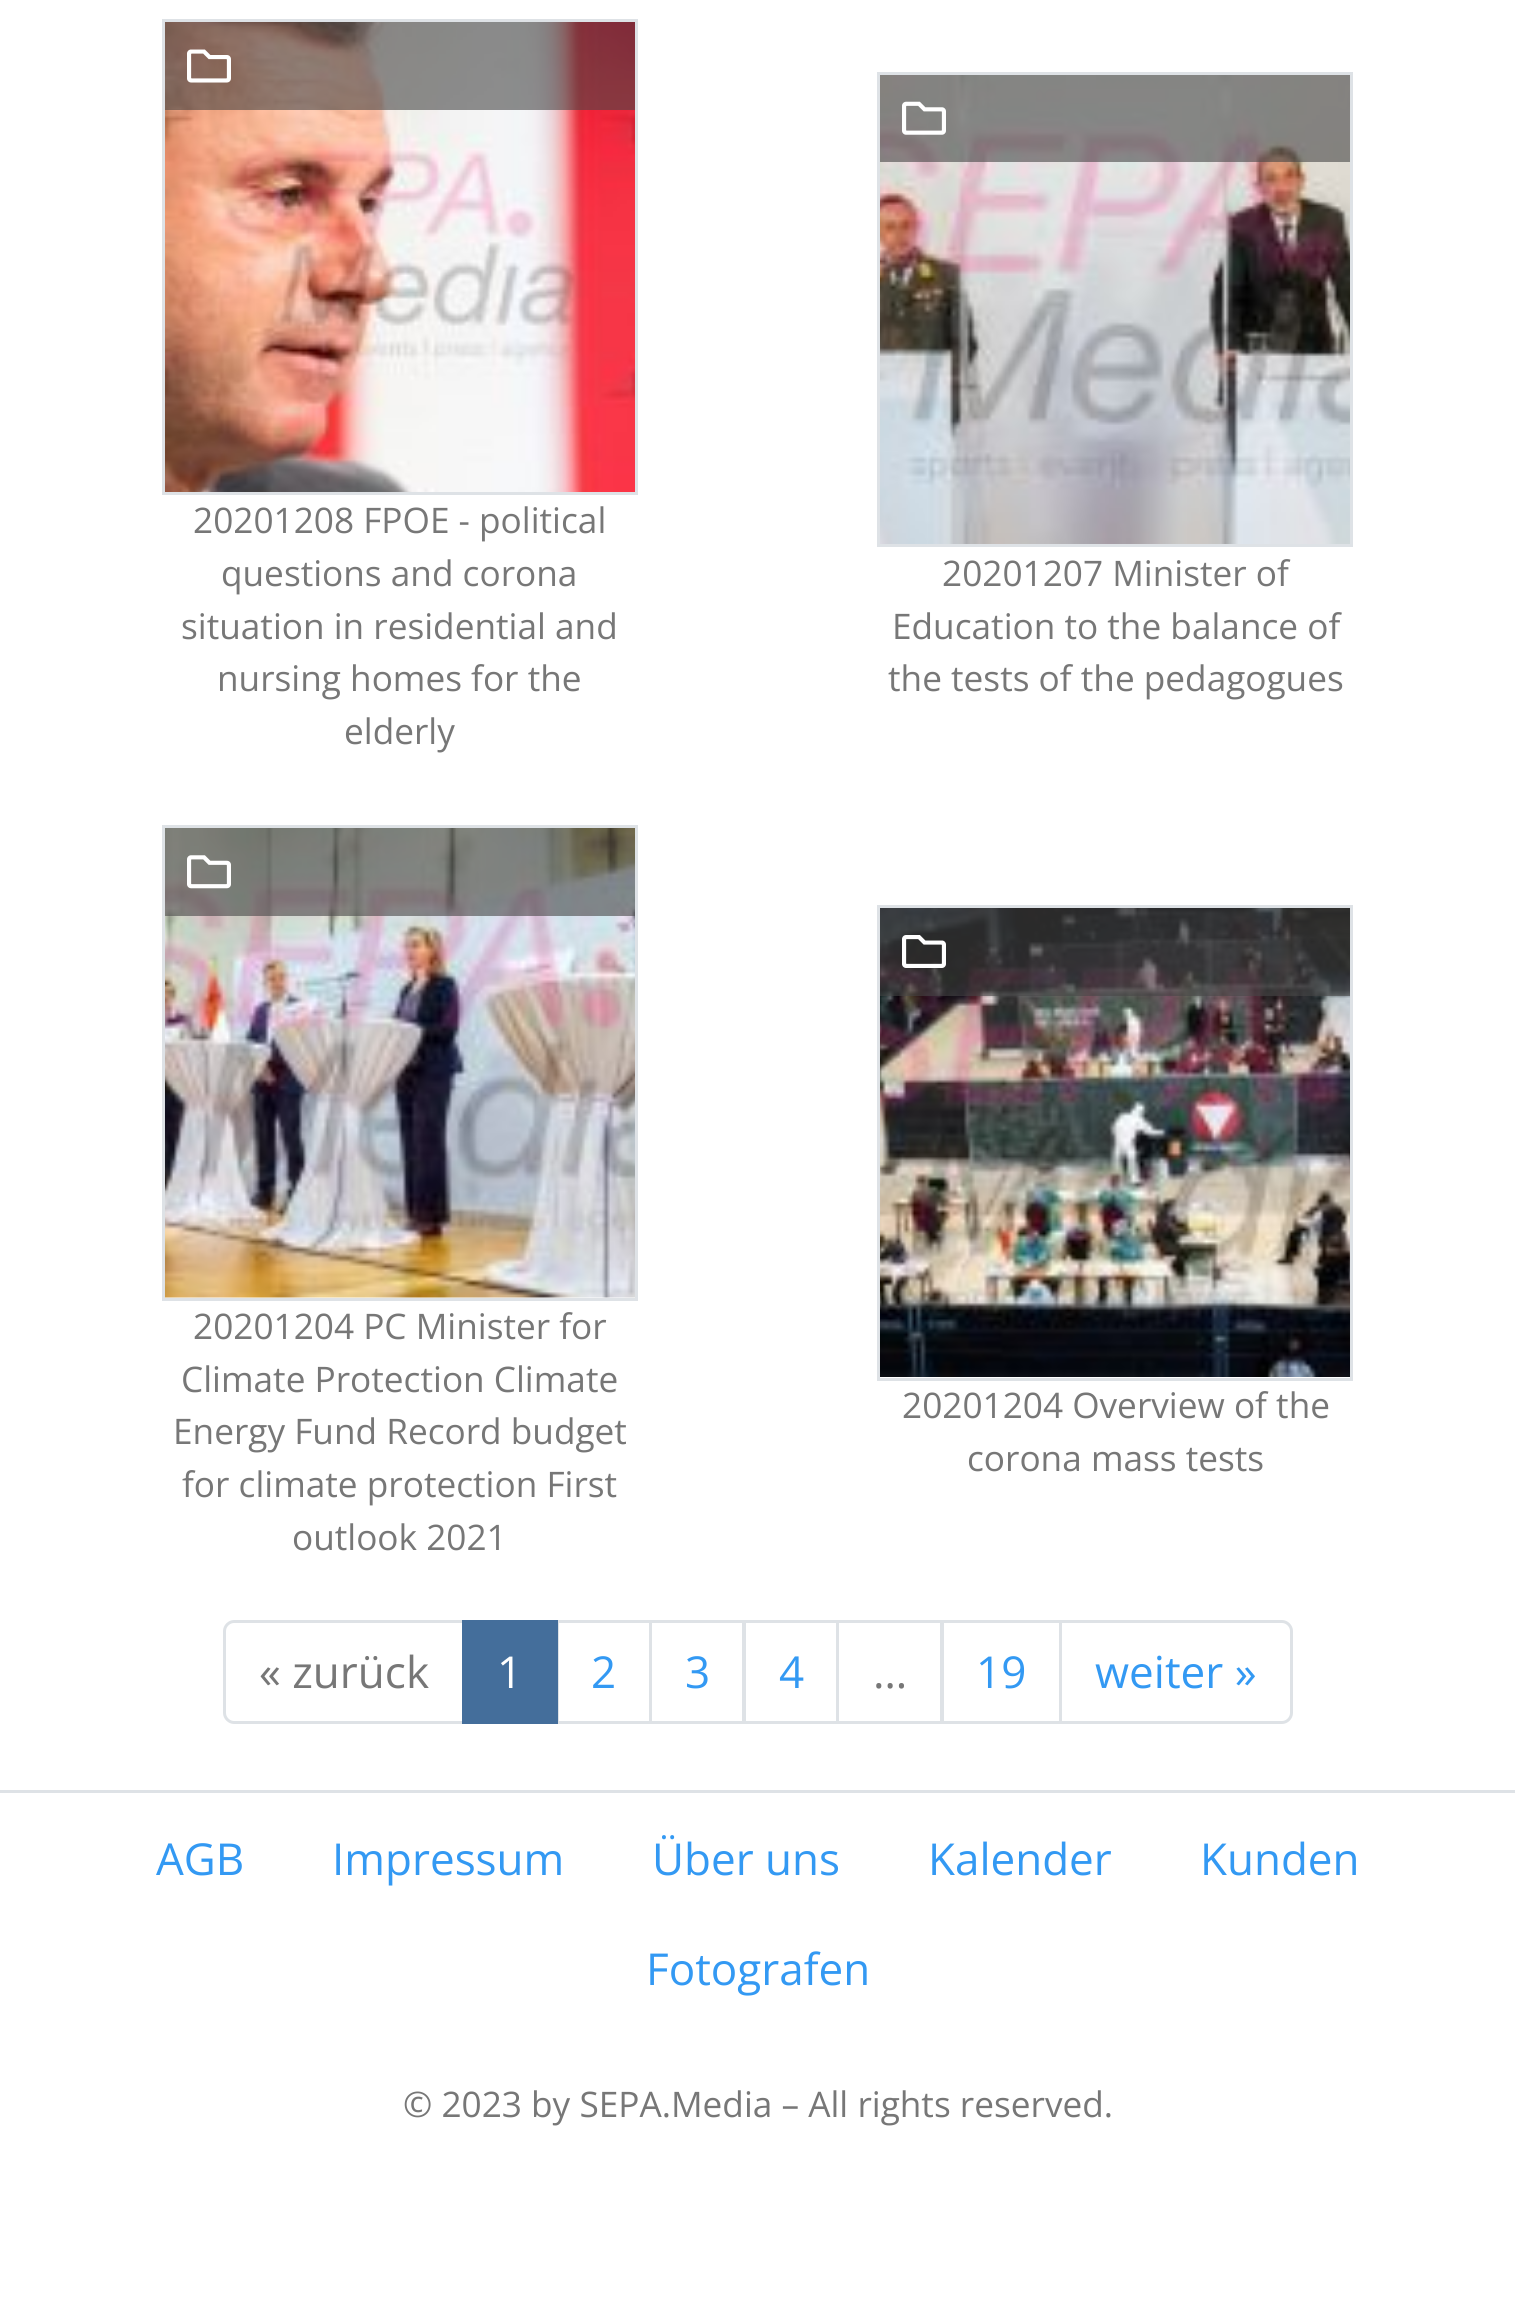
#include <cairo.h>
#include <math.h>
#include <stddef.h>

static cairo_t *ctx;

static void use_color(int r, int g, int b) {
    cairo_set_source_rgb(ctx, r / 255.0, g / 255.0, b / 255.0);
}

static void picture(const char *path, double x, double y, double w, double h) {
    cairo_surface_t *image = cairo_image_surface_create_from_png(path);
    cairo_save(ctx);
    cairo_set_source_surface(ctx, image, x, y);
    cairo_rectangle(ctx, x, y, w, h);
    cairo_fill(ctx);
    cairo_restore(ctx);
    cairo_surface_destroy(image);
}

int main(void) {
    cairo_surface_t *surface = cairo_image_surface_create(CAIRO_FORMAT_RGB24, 1515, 2299);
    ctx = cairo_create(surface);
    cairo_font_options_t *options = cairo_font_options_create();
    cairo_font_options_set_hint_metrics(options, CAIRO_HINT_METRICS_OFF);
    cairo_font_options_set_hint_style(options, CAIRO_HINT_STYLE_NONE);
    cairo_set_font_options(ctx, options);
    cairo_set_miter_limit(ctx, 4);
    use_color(255, 255, 255);
    cairo_paint(ctx);
    picture("img1.png", 165, 22, 470, 470);
    cairo_rectangle(ctx, 163.5, 20.5, 473, 473);
    use_color(222, 226, 230);
    cairo_set_line_width(ctx, 3);
    cairo_stroke(ctx);
    cairo_set_source_rgba(ctx, 0.275, 0.275, 0.275, 0.6);
    cairo_rectangle(ctx, 165, 22, 470, 88);
    cairo_fill(ctx);
    picture("img2.png", 187, 49, 44, 34);
    cairo_select_font_face(ctx, "Open Sans", CAIRO_FONT_SLANT_NORMAL, CAIRO_FONT_WEIGHT_NORMAL);
    cairo_set_font_size(ctx, 35.2);
    use_color(119, 119, 119);
    cairo_move_to(ctx, 193, 533);
    cairo_show_text(ctx, "20201208 FPOE - political");
    cairo_move_to(ctx, 221, 586);
    cairo_show_text(ctx, "questions and corona");
    cairo_move_to(ctx, 181, 639);
    cairo_show_text(ctx, "situation in residential and");
    cairo_move_to(ctx, 217, 691);
    cairo_show_text(ctx, "nursing homes for the");
    cairo_move_to(ctx, 344, 744);
    cairo_show_text(ctx, "elderly");
    picture("img3.png", 880, 75, 470, 469);
    cairo_rectangle(ctx, 878.5, 73.5, 473, 472);
    use_color(222, 226, 230);
    cairo_stroke(ctx);
    cairo_set_source_rgba(ctx, 0.275, 0.275, 0.275, 0.6);
    cairo_rectangle(ctx, 880, 75, 470, 87);
    cairo_fill(ctx);
    picture("img4.png", 902, 101, 44, 34);
    use_color(119, 119, 119);
    cairo_move_to(ctx, 942, 586);
    cairo_show_text(ctx, "20201207 Minister of");
    cairo_move_to(ctx, 892, 639);
    cairo_show_text(ctx, "Education to the balance of");
    cairo_move_to(ctx, 888, 691);
    cairo_show_text(ctx, "the tests of the pedagogues");
    picture("img5.png", 165, 828, 470, 470);
    cairo_rectangle(ctx, 163.5, 826.5, 473, 473);
    use_color(222, 226, 230);
    cairo_stroke(ctx);
    cairo_set_source_rgba(ctx, 0.275, 0.275, 0.275, 0.6);
    cairo_rectangle(ctx, 165, 828, 470, 88);
    cairo_fill(ctx);
    picture("img6.png", 187, 855, 44, 34);
    use_color(119, 119, 119);
    cairo_move_to(ctx, 193, 1339);
    cairo_show_text(ctx, "20201204 PC Minister for");
    cairo_move_to(ctx, 181, 1392);
    cairo_show_text(ctx, "Climate Protection Climate");
    cairo_move_to(ctx, 173, 1444);
    cairo_show_text(ctx, "Energy Fund Record budget");
    cairo_move_to(ctx, 182, 1497);
    cairo_show_text(ctx, "for climate protection First");
    cairo_move_to(ctx, 292, 1550);
    cairo_show_text(ctx, "outlook 2021");
    picture("img7.png", 880, 908, 470, 469);
    cairo_rectangle(ctx, 878.5, 906.5, 473, 473);
    use_color(222, 226, 230);
    cairo_stroke(ctx);
    cairo_set_source_rgba(ctx, 0.275, 0.275, 0.275, 0.6);
    cairo_rectangle(ctx, 880, 908, 470, 88);
    cairo_fill(ctx);
    picture("img8.png", 902, 935, 44, 33);
    use_color(119, 119, 119);
    cairo_move_to(ctx, 902, 1418);
    cairo_show_text(ctx, "20201204 Overview of the");
    cairo_move_to(ctx, 967, 1471);
    cairo_show_text(ctx, "corona mass tests");
    cairo_new_path(ctx);
    cairo_move_to(ctx, 234, 1621.5);
    cairo_line_to(ctx, 463.5, 1621.5);
    cairo_line_to(ctx, 463.5, 1722.5);
    cairo_line_to(ctx, 234, 1722.5);
    cairo_curve_to(ctx, 229, 1722.5, 224.5, 1718, 224.5, 1713);
    cairo_line_to(ctx, 224.5, 1631);
    cairo_curve_to(ctx, 224.5, 1626, 229, 1621.5, 234, 1621.5);
    cairo_close_path(ctx);
    use_color(222, 226, 230);
    cairo_stroke(ctx);
    cairo_set_font_size(ctx, 44);
    use_color(119, 119, 119);
    cairo_move_to(ctx, 259, 1688);
    cairo_show_text(ctx, "« zurück");
    cairo_rectangle(ctx, 557.5, 1621.5, 93, 101);
    use_color(222, 226, 230);
    cairo_stroke(ctx);
    use_color(68, 110, 155);
    cairo_rectangle(ctx, 462, 1620, 96, 104);
    cairo_fill(ctx);
    use_color(255, 255, 255);
    cairo_move_to(ctx, 497, 1688);
    cairo_show_text(ctx, "1");
    use_color(51, 153, 243);
    cairo_move_to(ctx, 591, 1688);
    cairo_show_text(ctx, "2");
    cairo_rectangle(ctx, 650.5, 1621.5, 93, 101);
    use_color(222, 226, 230);
    cairo_stroke(ctx);
    use_color(51, 153, 243);
    cairo_move_to(ctx, 685, 1688);
    cairo_show_text(ctx, "3");
    cairo_rectangle(ctx, 744.5, 1621.5, 93, 101);
    use_color(222, 226, 230);
    cairo_stroke(ctx);
    use_color(51, 153, 243);
    cairo_move_to(ctx, 779, 1688);
    cairo_show_text(ctx, "4");
    cairo_rectangle(ctx, 837.5, 1621.5, 104, 101);
    use_color(222, 226, 230);
    cairo_stroke(ctx);
    use_color(119, 119, 119);
    cairo_move_to(ctx, 873, 1688);
    cairo_show_text(ctx, "…");
    cairo_rectangle(ctx, 942.5, 1621.5, 118, 101);
    use_color(222, 226, 230);
    cairo_stroke(ctx);
    use_color(51, 153, 243);
    cairo_move_to(ctx, 976, 1688);
    cairo_show_text(ctx, "19");
    use_color(255, 255, 255);
    cairo_new_path(ctx);
    cairo_move_to(ctx, 1060.5, 1621.5);
    cairo_line_to(ctx, 1282, 1621.5);
    cairo_curve_to(ctx, 1287, 1621.5, 1291.5, 1626, 1291.5, 1631);
    cairo_line_to(ctx, 1291.5, 1713);
    cairo_curve_to(ctx, 1291.5, 1718, 1287, 1722.5, 1282, 1722.5);
    cairo_line_to(ctx, 1060.5, 1722.5);
    cairo_close_path(ctx);
    cairo_fill_preserve(ctx);
    use_color(222, 226, 230);
    cairo_stroke(ctx);
    use_color(51, 153, 243);
    cairo_move_to(ctx, 1095, 1688);
    cairo_show_text(ctx, "weiter »");
    use_color(222, 226, 230);
    cairo_rectangle(ctx, 0, 1790, 1515, 3);
    cairo_fill(ctx);
    use_color(51, 153, 243);
    cairo_move_to(ctx, 156, 1875);
    cairo_show_text(ctx, "AGB");
    cairo_move_to(ctx, 332, 1875);
    cairo_show_text(ctx, "Impressum");
    cairo_move_to(ctx, 652, 1875);
    cairo_show_text(ctx, "Über uns");
    cairo_move_to(ctx, 928, 1875);
    cairo_show_text(ctx, "Kalender");
    cairo_move_to(ctx, 1200, 1875);
    cairo_show_text(ctx, "Kunden");
    cairo_move_to(ctx, 646, 1985);
    cairo_show_text(ctx, "Fotografen");
    cairo_set_font_size(ctx, 35.2);
    use_color(119, 119, 119);
    cairo_move_to(ctx, 403, 2117);
    cairo_show_text(ctx, "© 2023 by SEPA.Media – All rights reserved.");
    cairo_surface_write_to_png(surface, "result.png");
    cairo_font_options_destroy(options);
    cairo_destroy(ctx);
    cairo_surface_destroy(surface);
    return 0;
}
